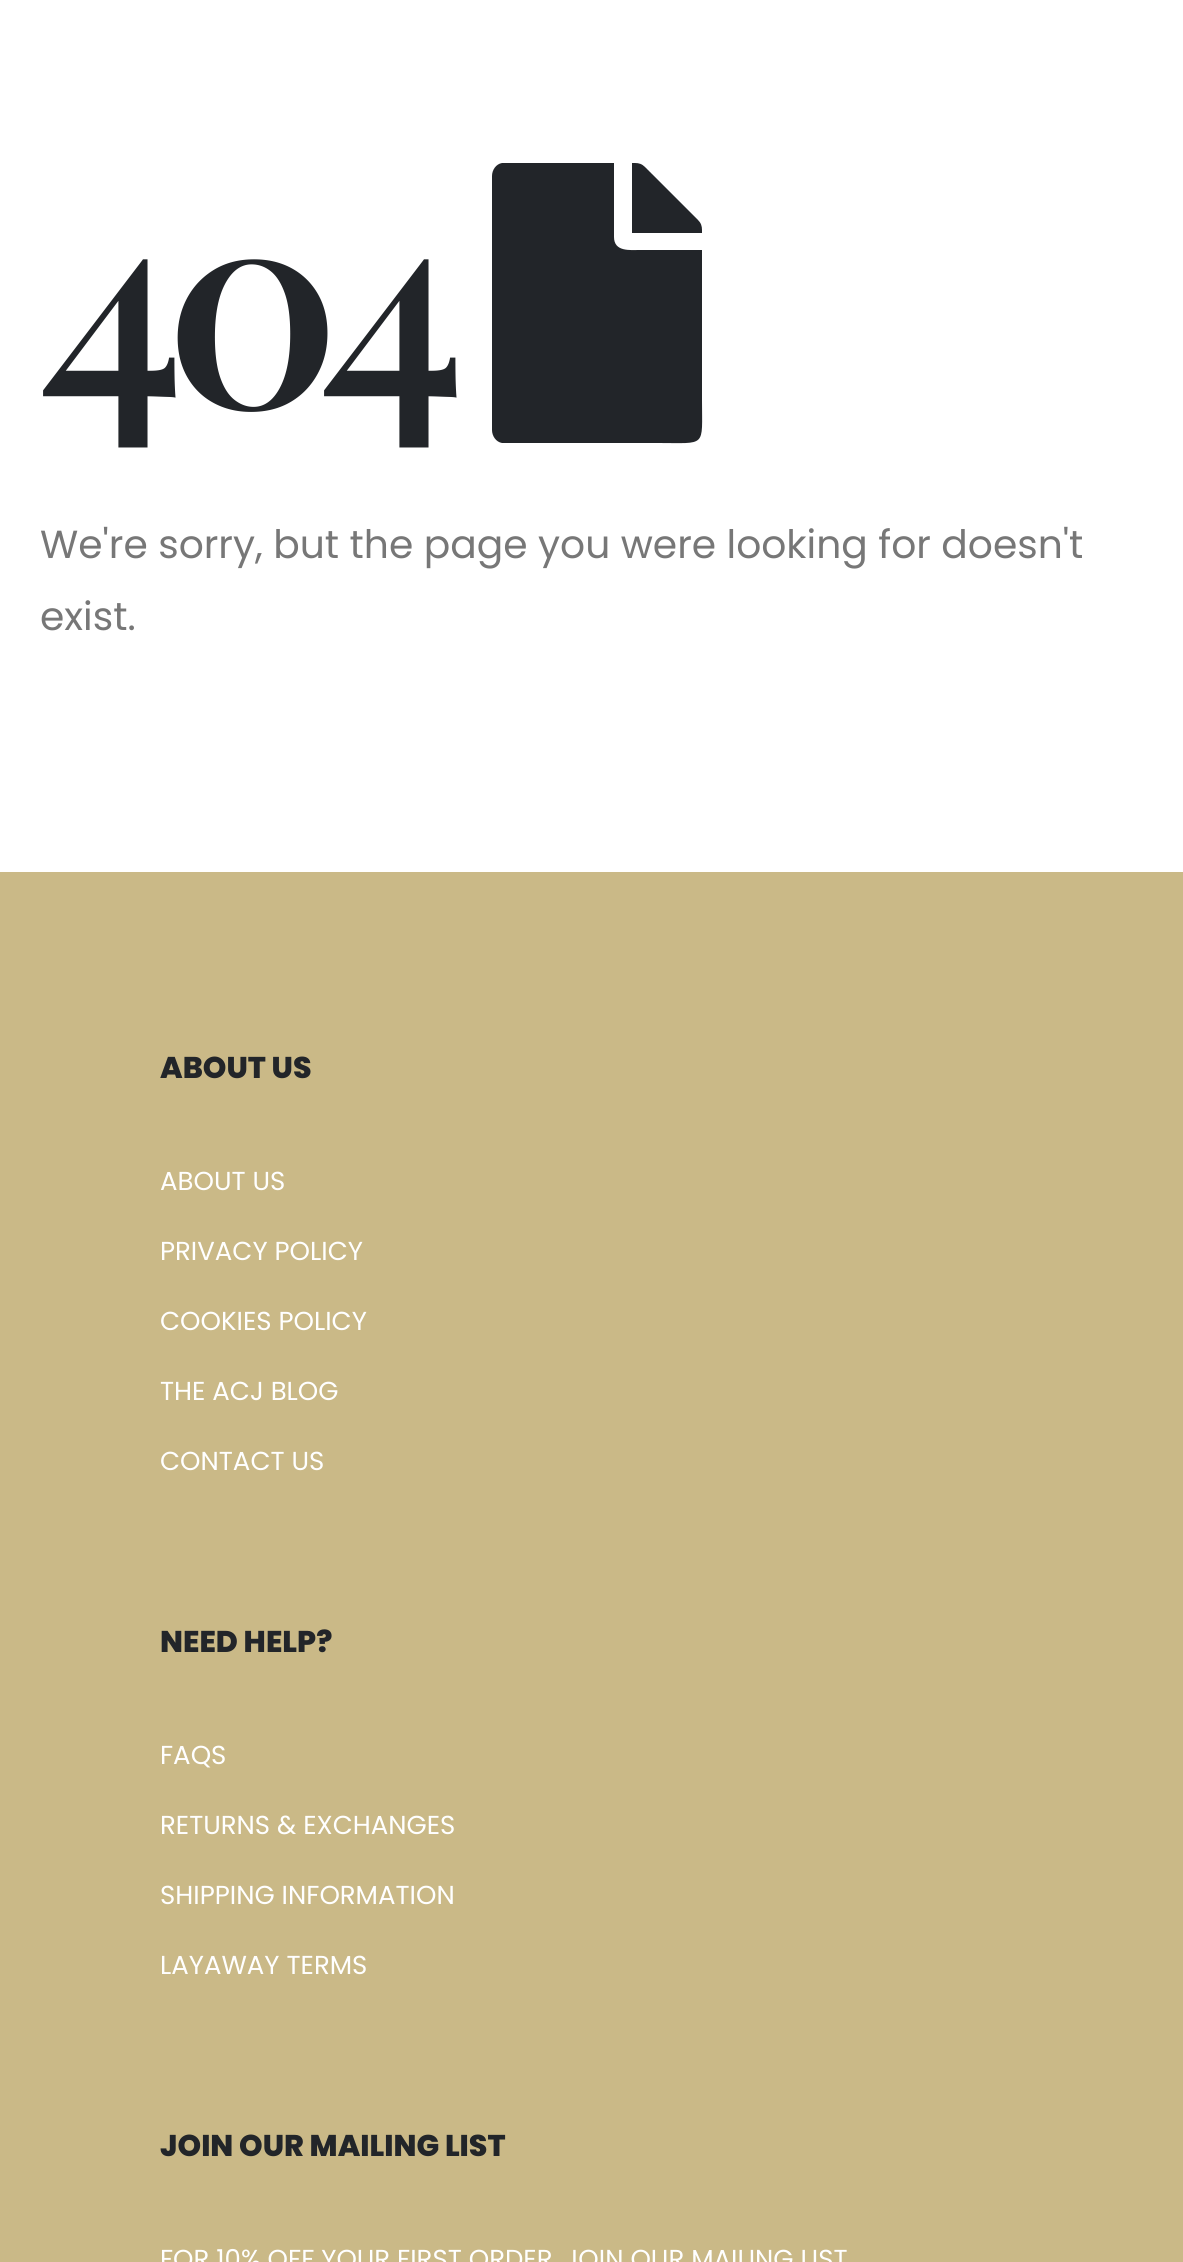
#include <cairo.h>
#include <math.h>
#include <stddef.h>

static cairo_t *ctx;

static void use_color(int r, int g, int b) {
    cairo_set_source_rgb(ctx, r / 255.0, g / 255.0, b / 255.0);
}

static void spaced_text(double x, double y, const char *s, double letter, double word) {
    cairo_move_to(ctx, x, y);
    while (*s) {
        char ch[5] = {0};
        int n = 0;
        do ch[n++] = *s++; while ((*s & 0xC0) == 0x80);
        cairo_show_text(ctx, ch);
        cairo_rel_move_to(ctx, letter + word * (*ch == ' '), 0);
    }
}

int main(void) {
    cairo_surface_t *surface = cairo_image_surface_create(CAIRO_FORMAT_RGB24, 1183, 2262);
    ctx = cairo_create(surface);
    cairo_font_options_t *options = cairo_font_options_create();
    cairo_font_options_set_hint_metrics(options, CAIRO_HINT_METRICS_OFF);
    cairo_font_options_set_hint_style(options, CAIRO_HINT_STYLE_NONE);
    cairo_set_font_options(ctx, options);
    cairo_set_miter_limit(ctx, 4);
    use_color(255, 255, 255);
    cairo_paint(ctx);
    cairo_select_font_face(ctx, "Playfair Display SemiBold", CAIRO_FONT_SLANT_NORMAL, CAIRO_FONT_WEIGHT_NORMAL);
    cairo_set_font_size(ctx, 280);
    use_color(34, 37, 41);
    spaced_text(40, 408, "404", -20, 0);
    cairo_new_path(ctx);
    cairo_move_to(ctx, 614, 237);
    cairo_curve_to(ctx, 614, 252, 630, 250, 640, 250);
    cairo_line_to(ctx, 702, 250);
    cairo_line_to(ctx, 702, 400);
    cairo_curve_to(ctx, 702, 448, 707, 443, 658, 443);
    cairo_line_to(ctx, 502, 443);
    cairo_curve_to(ctx, 496, 442, 492, 436, 492, 430);
    cairo_line_to(ctx, 492, 176);
    cairo_curve_to(ctx, 492, 170, 496, 164, 502, 163);
    cairo_line_to(ctx, 614, 163);
    cairo_close_path(ctx);
    cairo_move_to(ctx, 702, 230);
    cairo_line_to(ctx, 702, 233);
    cairo_line_to(ctx, 632, 233);
    cairo_line_to(ctx, 632, 163);
    cairo_line_to(ctx, 635, 163);
    cairo_curve_to(ctx, 639, 163, 642, 164, 645, 167);
    cairo_line_to(ctx, 698, 220);
    cairo_curve_to(ctx, 701, 223, 702, 226, 702, 230);
    cairo_close_path(ctx);
    cairo_fill(ctx);
    cairo_select_font_face(ctx, "Poppins", CAIRO_FONT_SLANT_NORMAL, CAIRO_FONT_WEIGHT_NORMAL);
    cairo_set_font_size(ctx, 39.2);
    use_color(119, 119, 119);
    cairo_move_to(ctx, 40, 558);
    cairo_show_text(ctx, "We're sorry, but the page you were looking for doesn't");
    cairo_move_to(ctx, 40, 630);
    cairo_show_text(ctx, "exist.");
    use_color(202, 185, 135);
    cairo_rectangle(ctx, 0, 872, 1183, 1390);
    cairo_fill(ctx);
    cairo_select_font_face(ctx, "Poppins ExtraBold", CAIRO_FONT_SLANT_NORMAL, CAIRO_FONT_WEIGHT_NORMAL);
    cairo_set_font_size(ctx, 30);
    use_color(34, 37, 41);
    cairo_move_to(ctx, 160, 1078);
    cairo_show_text(ctx, "ABOUT US");
    cairo_select_font_face(ctx, "Poppins", CAIRO_FONT_SLANT_NORMAL, CAIRO_FONT_WEIGHT_NORMAL);
    cairo_set_font_size(ctx, 26);
    use_color(255, 255, 255);
    cairo_move_to(ctx, 160, 1190);
    cairo_show_text(ctx, "ABOUT US");
    cairo_move_to(ctx, 160, 1260);
    cairo_show_text(ctx, "PRIVACY POLICY");
    cairo_move_to(ctx, 160, 1330);
    cairo_show_text(ctx, "COOKIES POLICY");
    cairo_move_to(ctx, 160, 1400);
    cairo_show_text(ctx, "THE ACJ BLOG");
    cairo_move_to(ctx, 160, 1470);
    cairo_show_text(ctx, "CONTACT US");
    cairo_select_font_face(ctx, "Poppins ExtraBold", CAIRO_FONT_SLANT_NORMAL, CAIRO_FONT_WEIGHT_NORMAL);
    cairo_set_font_size(ctx, 30);
    use_color(34, 37, 41);
    cairo_move_to(ctx, 160, 1652);
    cairo_show_text(ctx, "NEED HELP?");
    cairo_select_font_face(ctx, "Poppins", CAIRO_FONT_SLANT_NORMAL, CAIRO_FONT_WEIGHT_NORMAL);
    cairo_set_font_size(ctx, 26);
    use_color(255, 255, 255);
    cairo_move_to(ctx, 160, 1764);
    cairo_show_text(ctx, "FAQS");
    cairo_move_to(ctx, 160, 1834);
    cairo_show_text(ctx, "RETURNS & EXCHANGES");
    cairo_move_to(ctx, 160, 1904);
    cairo_show_text(ctx, "SHIPPING INFORMATION");
    cairo_move_to(ctx, 160, 1974);
    cairo_show_text(ctx, "LAYAWAY TERMS");
    cairo_select_font_face(ctx, "Poppins ExtraBold", CAIRO_FONT_SLANT_NORMAL, CAIRO_FONT_WEIGHT_NORMAL);
    cairo_set_font_size(ctx, 30);
    use_color(34, 37, 41);
    cairo_move_to(ctx, 160, 2156);
    cairo_show_text(ctx, "JOIN OUR MAILING LIST");
    cairo_select_font_face(ctx, "Poppins", CAIRO_FONT_SLANT_NORMAL, CAIRO_FONT_WEIGHT_NORMAL);
    cairo_set_font_size(ctx, 26);
    use_color(255, 255, 255);
    cairo_move_to(ctx, 160, 2268);
    cairo_show_text(ctx, "FOR 10% OFF YOUR FIRST ORDER, JOIN OUR MAILING LIST");
    cairo_surface_write_to_png(surface, "result.png");
    cairo_font_options_destroy(options);
    cairo_destroy(ctx);
    cairo_surface_destroy(surface);
    return 0;
}
